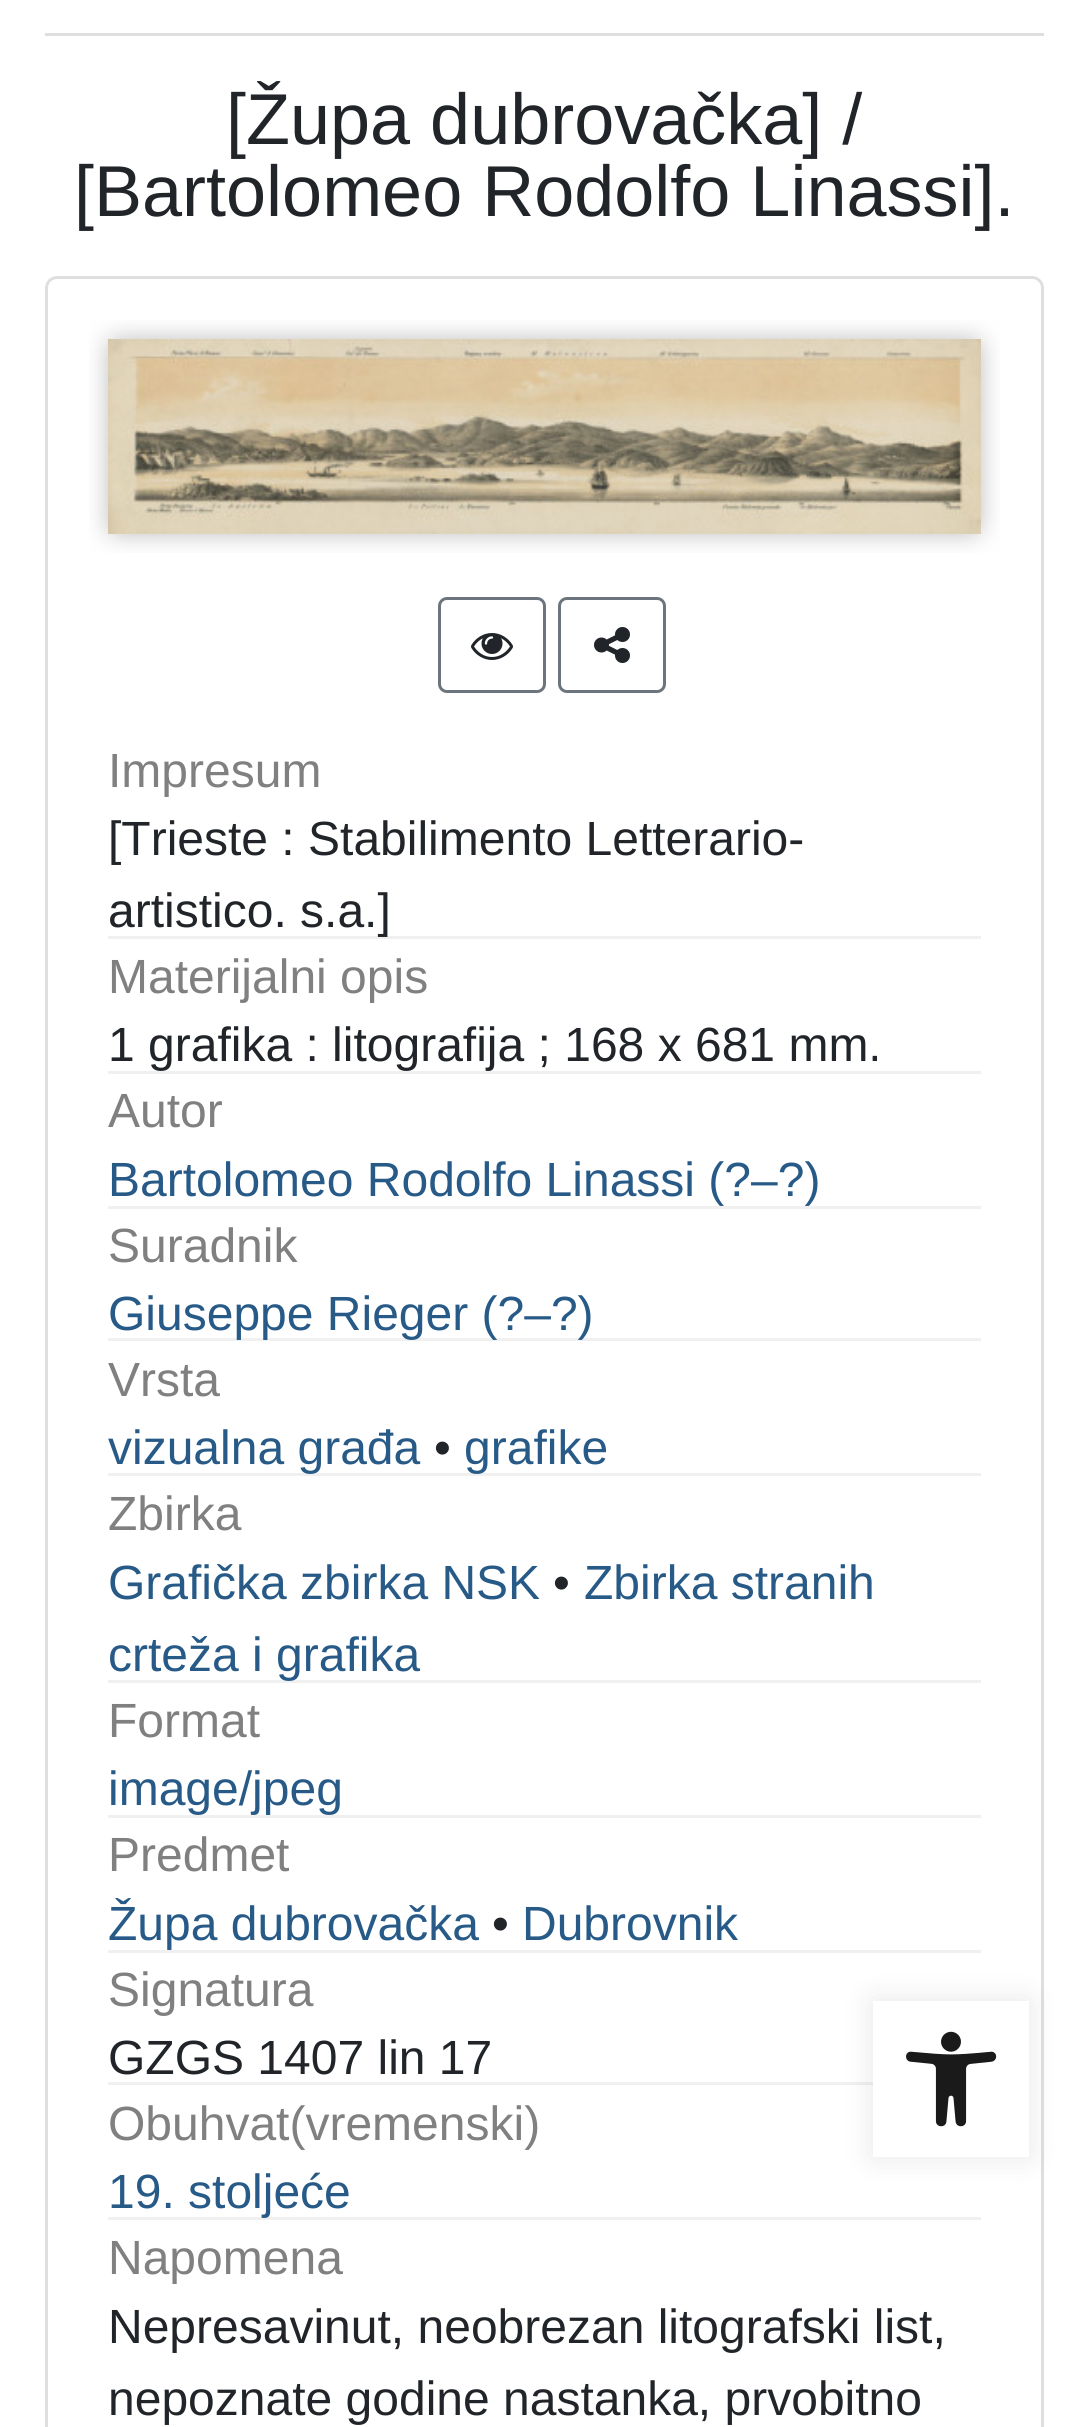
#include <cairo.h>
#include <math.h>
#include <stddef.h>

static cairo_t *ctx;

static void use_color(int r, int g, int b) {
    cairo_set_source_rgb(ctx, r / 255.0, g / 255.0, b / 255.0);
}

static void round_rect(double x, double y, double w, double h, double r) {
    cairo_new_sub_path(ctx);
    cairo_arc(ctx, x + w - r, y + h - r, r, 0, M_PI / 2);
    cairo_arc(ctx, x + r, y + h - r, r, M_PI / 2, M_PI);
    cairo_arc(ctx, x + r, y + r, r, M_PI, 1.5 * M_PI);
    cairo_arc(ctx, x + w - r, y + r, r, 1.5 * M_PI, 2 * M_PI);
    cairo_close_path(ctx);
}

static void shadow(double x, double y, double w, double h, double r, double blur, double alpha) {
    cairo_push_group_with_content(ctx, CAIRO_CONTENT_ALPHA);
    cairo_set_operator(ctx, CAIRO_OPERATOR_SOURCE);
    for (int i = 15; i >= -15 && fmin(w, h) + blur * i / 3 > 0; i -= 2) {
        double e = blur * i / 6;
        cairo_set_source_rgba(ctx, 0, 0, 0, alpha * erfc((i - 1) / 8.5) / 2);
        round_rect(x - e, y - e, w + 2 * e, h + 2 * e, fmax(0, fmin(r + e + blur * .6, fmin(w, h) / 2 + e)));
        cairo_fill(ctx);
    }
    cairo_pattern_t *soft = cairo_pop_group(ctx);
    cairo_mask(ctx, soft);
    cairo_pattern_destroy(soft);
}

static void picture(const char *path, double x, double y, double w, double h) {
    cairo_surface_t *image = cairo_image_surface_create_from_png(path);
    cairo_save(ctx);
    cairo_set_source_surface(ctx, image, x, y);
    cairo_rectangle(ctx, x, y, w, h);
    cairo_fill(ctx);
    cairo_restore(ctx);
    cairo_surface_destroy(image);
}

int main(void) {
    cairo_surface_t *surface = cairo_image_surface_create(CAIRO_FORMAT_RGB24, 1087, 2427);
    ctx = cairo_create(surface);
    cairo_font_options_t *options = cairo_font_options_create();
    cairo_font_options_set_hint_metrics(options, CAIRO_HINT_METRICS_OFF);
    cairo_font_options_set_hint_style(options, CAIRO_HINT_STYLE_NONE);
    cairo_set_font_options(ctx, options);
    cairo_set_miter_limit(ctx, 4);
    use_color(255, 255, 255);
    cairo_paint(ctx);
    use_color(223, 223, 223);
    cairo_rectangle(ctx, 45, 33, 999, 3);
    cairo_fill(ctx);
    cairo_select_font_face(ctx, "Liberation Sans", CAIRO_FONT_SLANT_NORMAL, CAIRO_FONT_WEIGHT_NORMAL);
    cairo_set_font_size(ctx, 72);
    use_color(33, 37, 41);
    cairo_move_to(ctx, 226, 144);
    cairo_show_text(ctx, "[Župa dubrovačka] /");
    cairo_move_to(ctx, 74, 216);
    cairo_show_text(ctx, "[Bartolomeo Rodolfo Linassi].");
    round_rect(46.5, 277.5, 996, 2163, 10.5);
    use_color(223, 223, 223);
    cairo_set_line_width(ctx, 3);
    cairo_stroke(ctx);
    picture("img1.png", 89, 320, 911, 233);
    round_rect(439.5, 598.5, 105, 93, 7.5);
    use_color(108, 117, 125);
    cairo_stroke(ctx);
    picture("img2.png", 471, 633, 42, 27);
    round_rect(559.5, 598.5, 105, 93, 7.5);
    cairo_stroke(ctx);
    picture("img3.png", 594, 627, 36, 36);
    cairo_set_font_size(ctx, 48);
    use_color(128, 128, 128);
    cairo_move_to(ctx, 108, 787);
    cairo_show_text(ctx, "Impresum");
    use_color(33, 37, 41);
    cairo_move_to(ctx, 108, 855);
    cairo_show_text(ctx, "[Trieste : Stabilimento Letterario-");
    use_color(240, 240, 240);
    cairo_rectangle(ctx, 108, 936, 873, 3);
    cairo_fill(ctx);
    use_color(33, 37, 41);
    cairo_move_to(ctx, 108, 927);
    cairo_show_text(ctx, "artistico. s.a.]");
    use_color(128, 128, 128);
    cairo_move_to(ctx, 108, 993);
    cairo_show_text(ctx, "Materijalni opis");
    use_color(33, 37, 41);
    cairo_move_to(ctx, 108, 1061);
    cairo_show_text(ctx, "1 grafika : litografija ; 168 x 681 mm.");
    use_color(240, 240, 240);
    cairo_rectangle(ctx, 108, 1071, 873, 3);
    cairo_fill(ctx);
    use_color(128, 128, 128);
    cairo_move_to(ctx, 108, 1127);
    cairo_show_text(ctx, "Autor");
    use_color(39, 90, 135);
    cairo_move_to(ctx, 108, 1196);
    cairo_show_text(ctx, "Bartolomeo Rodolfo Linassi (?–?)");
    use_color(240, 240, 240);
    cairo_rectangle(ctx, 108, 1206, 873, 3);
    cairo_fill(ctx);
    use_color(128, 128, 128);
    cairo_move_to(ctx, 108, 1262);
    cairo_show_text(ctx, "Suradnik");
    use_color(240, 240, 240);
    cairo_rectangle(ctx, 108, 1338, 873, 3);
    cairo_fill(ctx);
    use_color(39, 90, 135);
    cairo_move_to(ctx, 108, 1330);
    cairo_show_text(ctx, "Giuseppe Rieger (?–?)");
    use_color(128, 128, 128);
    cairo_move_to(ctx, 108, 1396);
    cairo_show_text(ctx, "Vrsta");
    use_color(240, 240, 240);
    cairo_rectangle(ctx, 108, 1473, 873, 3);
    cairo_fill(ctx);
    use_color(39, 90, 135);
    cairo_move_to(ctx, 108, 1464);
    cairo_show_text(ctx, "vizualna građa");
    use_color(33, 37, 41);
    cairo_move_to(ctx, 434, 1464);
    cairo_show_text(ctx, "•");
    use_color(39, 90, 135);
    cairo_move_to(ctx, 464, 1464);
    cairo_show_text(ctx, "grafike");
    use_color(128, 128, 128);
    cairo_move_to(ctx, 108, 1530);
    cairo_show_text(ctx, "Zbirka");
    use_color(39, 90, 135);
    cairo_move_to(ctx, 108, 1599);
    cairo_show_text(ctx, "Grafička zbirka NSK");
    use_color(33, 37, 41);
    cairo_move_to(ctx, 553, 1599);
    cairo_show_text(ctx, "•");
    use_color(39, 90, 135);
    cairo_move_to(ctx, 584, 1599);
    cairo_show_text(ctx, "Zbirka stranih");
    use_color(240, 240, 240);
    cairo_rectangle(ctx, 108, 1680, 873, 3);
    cairo_fill(ctx);
    use_color(39, 90, 135);
    cairo_move_to(ctx, 108, 1671);
    cairo_show_text(ctx, "crteža i grafika");
    use_color(128, 128, 128);
    cairo_move_to(ctx, 108, 1737);
    cairo_show_text(ctx, "Format");
    use_color(39, 90, 135);
    cairo_move_to(ctx, 108, 1805);
    cairo_show_text(ctx, "image/jpeg");
    use_color(240, 240, 240);
    cairo_rectangle(ctx, 108, 1815, 873, 3);
    cairo_fill(ctx);
    use_color(128, 128, 128);
    cairo_move_to(ctx, 108, 1871);
    cairo_show_text(ctx, "Predmet");
    use_color(39, 90, 135);
    cairo_move_to(ctx, 108, 1940);
    cairo_show_text(ctx, "Župa dubrovačka");
    use_color(33, 37, 41);
    cairo_move_to(ctx, 492, 1940);
    cairo_show_text(ctx, "•");
    use_color(39, 90, 135);
    cairo_move_to(ctx, 522, 1940);
    cairo_show_text(ctx, "Dubrovnik");
    use_color(240, 240, 240);
    cairo_rectangle(ctx, 108, 1950, 873, 3);
    cairo_fill(ctx);
    use_color(128, 128, 128);
    cairo_move_to(ctx, 108, 2006);
    cairo_show_text(ctx, "Signatura");
    use_color(33, 37, 41);
    cairo_move_to(ctx, 108, 2074);
    cairo_show_text(ctx, "GZGS 1407 lin 17");
    use_color(240, 240, 240);
    cairo_rectangle(ctx, 108, 2082, 765, 3);
    cairo_fill(ctx);
    use_color(128, 128, 128);
    cairo_move_to(ctx, 108, 2140);
    cairo_show_text(ctx, "Obuhvat(vremenski)");
    use_color(240, 240, 240);
    cairo_rectangle(ctx, 108, 2217, 873, 3);
    cairo_fill(ctx);
    use_color(39, 90, 135);
    cairo_move_to(ctx, 108, 2208);
    cairo_show_text(ctx, "19. stoljeće");
    use_color(128, 128, 128);
    cairo_move_to(ctx, 108, 2274);
    cairo_show_text(ctx, "Napomena");
    use_color(33, 37, 41);
    cairo_move_to(ctx, 108, 2343);
    cairo_show_text(ctx, "Nepresavinut, neobrezan litografski list,");
    cairo_move_to(ctx, 108, 2415);
    cairo_show_text(ctx, "nepoznate godine nastanka, prvobitno");
    use_color(0, 0, 0);
    shadow(873, 2001, 156, 156, 0, 15, 0.1);
    use_color(255, 255, 255);
    cairo_rectangle(ctx, 873, 2001, 156, 156);
    cairo_fill(ctx);
    picture("img4.png", 906, 2031, 91, 96);
    cairo_surface_write_to_png(surface, "result.png");
    cairo_font_options_destroy(options);
    cairo_destroy(ctx);
    cairo_surface_destroy(surface);
    return 0;
}
